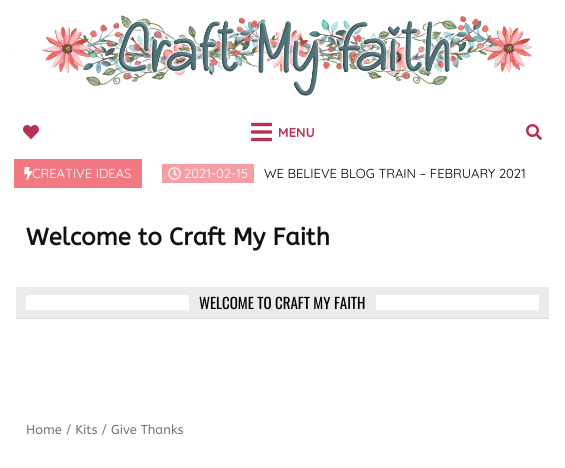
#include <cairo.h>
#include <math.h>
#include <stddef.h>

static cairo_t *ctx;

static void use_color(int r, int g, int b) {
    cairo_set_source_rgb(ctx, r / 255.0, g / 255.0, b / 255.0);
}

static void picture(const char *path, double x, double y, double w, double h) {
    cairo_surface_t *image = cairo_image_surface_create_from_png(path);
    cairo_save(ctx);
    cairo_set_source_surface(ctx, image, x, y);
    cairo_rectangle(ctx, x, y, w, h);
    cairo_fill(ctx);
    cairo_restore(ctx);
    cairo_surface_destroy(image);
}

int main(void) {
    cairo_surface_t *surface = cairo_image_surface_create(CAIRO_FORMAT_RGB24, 565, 468);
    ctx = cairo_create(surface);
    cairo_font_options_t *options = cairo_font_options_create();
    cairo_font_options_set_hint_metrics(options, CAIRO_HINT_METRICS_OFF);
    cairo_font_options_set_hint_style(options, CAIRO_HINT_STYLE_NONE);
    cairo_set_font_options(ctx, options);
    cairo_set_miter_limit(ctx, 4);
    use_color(255, 255, 255);
    cairo_paint(ctx);
    picture("img1.png", 14, 15, 518, 81);
    picture("img2.png", 23, 125, 16, 14);
    picture("img3.png", 251, 122, 21, 20);
    cairo_select_font_face(ctx, "Quicksand", CAIRO_FONT_SLANT_NORMAL, CAIRO_FONT_WEIGHT_BOLD);
    cairo_set_font_size(ctx, 13);
    use_color(183, 49, 85);
    cairo_move_to(ctx, 278, 137);
    cairo_show_text(ctx, "MENU");
    picture("img4.png", 526, 124, 16, 16);
    use_color(242, 121, 129);
    cairo_rectangle(ctx, 14, 159, 128, 29);
    cairo_fill(ctx);
    cairo_select_font_face(ctx, "Quicksand", CAIRO_FONT_SLANT_NORMAL, CAIRO_FONT_WEIGHT_NORMAL);
    use_color(255, 255, 255);
    cairo_move_to(ctx, 32, 178);
    cairo_show_text(ctx, "CREATIVE IDEAS");
    picture("img5.png", 24, 167, 9, 13);
    use_color(243, 159, 165);
    cairo_rectangle(ctx, 162, 164, 92, 19);
    cairo_fill(ctx);
    picture("img6.png", 168, 167, 13, 13);
    use_color(255, 255, 255);
    cairo_move_to(ctx, 184, 178);
    cairo_show_text(ctx, "2021-02-15");
    use_color(0, 0, 0);
    cairo_move_to(ctx, 264, 178);
    cairo_show_text(ctx, "WE BELIEVE BLOG TRAIN – FEBRUARY 2021");
    cairo_select_font_face(ctx, "ABeeZee", CAIRO_FONT_SLANT_NORMAL, CAIRO_FONT_WEIGHT_BOLD);
    cairo_set_font_size(ctx, 24);
    use_color(17, 17, 17);
    cairo_move_to(ctx, 26, 245);
    cairo_show_text(ctx, "Welcome to Craft My Faith");
    use_color(236, 236, 236);
    cairo_rectangle(ctx, 16, 287, 533, 31);
    cairo_fill(ctx);
    use_color(221, 221, 221);
    cairo_rectangle(ctx, 16, 318, 533, 1);
    cairo_fill(ctx);
    use_color(255, 255, 255);
    cairo_rectangle(ctx, 26, 295, 513, 15);
    cairo_fill(ctx);
    use_color(236, 236, 236);
    cairo_rectangle(ctx, 189, 295, 187, 15);
    cairo_fill(ctx);
    cairo_select_font_face(ctx, "Oswald", CAIRO_FONT_SLANT_NORMAL, CAIRO_FONT_WEIGHT_NORMAL);
    cairo_set_font_size(ctx, 15);
    use_color(0, 0, 0);
    cairo_move_to(ctx, 199, 309);
    cairo_show_text(ctx, "WELCOME TO CRAFT MY FAITH");
    cairo_select_font_face(ctx, "ABeeZee", CAIRO_FONT_SLANT_NORMAL, CAIRO_FONT_WEIGHT_NORMAL);
    cairo_set_font_size(ctx, 12.9);
    use_color(118, 118, 118);
    cairo_move_to(ctx, 26, 434);
    cairo_show_text(ctx, "Home / Kits / Give Thanks");
    cairo_surface_write_to_png(surface, "result.png");
    cairo_font_options_destroy(options);
    cairo_destroy(ctx);
    cairo_surface_destroy(surface);
    return 0;
}
